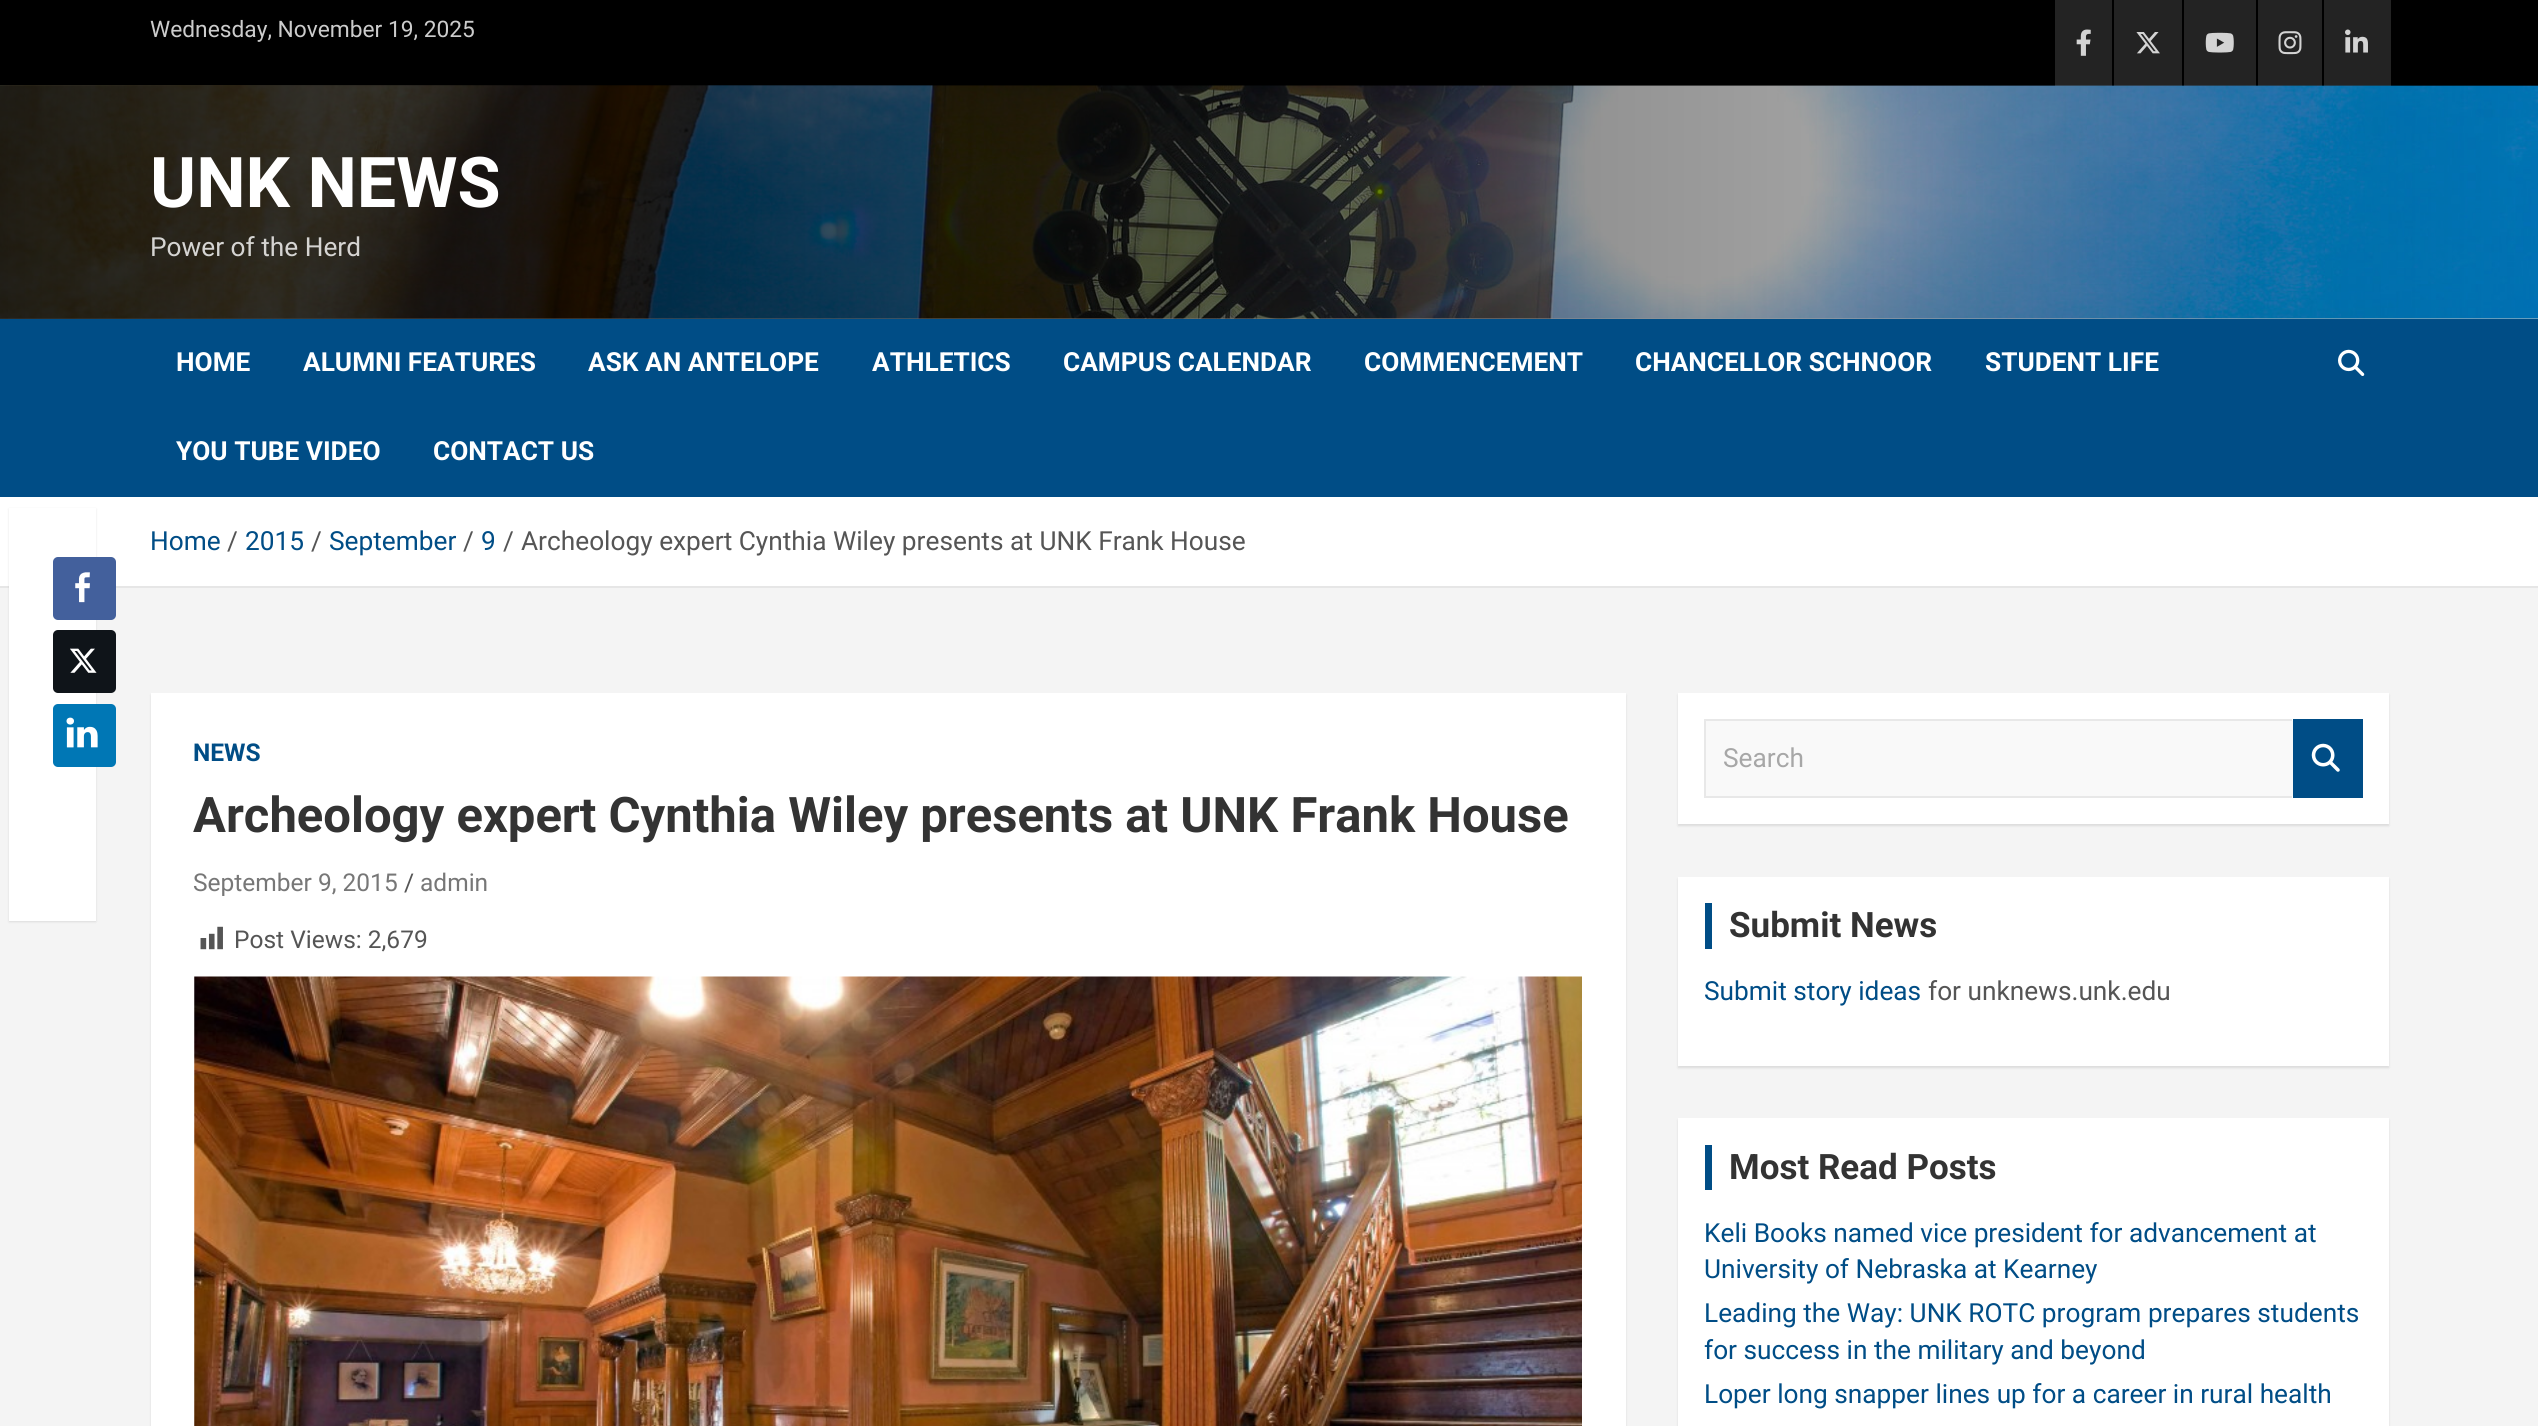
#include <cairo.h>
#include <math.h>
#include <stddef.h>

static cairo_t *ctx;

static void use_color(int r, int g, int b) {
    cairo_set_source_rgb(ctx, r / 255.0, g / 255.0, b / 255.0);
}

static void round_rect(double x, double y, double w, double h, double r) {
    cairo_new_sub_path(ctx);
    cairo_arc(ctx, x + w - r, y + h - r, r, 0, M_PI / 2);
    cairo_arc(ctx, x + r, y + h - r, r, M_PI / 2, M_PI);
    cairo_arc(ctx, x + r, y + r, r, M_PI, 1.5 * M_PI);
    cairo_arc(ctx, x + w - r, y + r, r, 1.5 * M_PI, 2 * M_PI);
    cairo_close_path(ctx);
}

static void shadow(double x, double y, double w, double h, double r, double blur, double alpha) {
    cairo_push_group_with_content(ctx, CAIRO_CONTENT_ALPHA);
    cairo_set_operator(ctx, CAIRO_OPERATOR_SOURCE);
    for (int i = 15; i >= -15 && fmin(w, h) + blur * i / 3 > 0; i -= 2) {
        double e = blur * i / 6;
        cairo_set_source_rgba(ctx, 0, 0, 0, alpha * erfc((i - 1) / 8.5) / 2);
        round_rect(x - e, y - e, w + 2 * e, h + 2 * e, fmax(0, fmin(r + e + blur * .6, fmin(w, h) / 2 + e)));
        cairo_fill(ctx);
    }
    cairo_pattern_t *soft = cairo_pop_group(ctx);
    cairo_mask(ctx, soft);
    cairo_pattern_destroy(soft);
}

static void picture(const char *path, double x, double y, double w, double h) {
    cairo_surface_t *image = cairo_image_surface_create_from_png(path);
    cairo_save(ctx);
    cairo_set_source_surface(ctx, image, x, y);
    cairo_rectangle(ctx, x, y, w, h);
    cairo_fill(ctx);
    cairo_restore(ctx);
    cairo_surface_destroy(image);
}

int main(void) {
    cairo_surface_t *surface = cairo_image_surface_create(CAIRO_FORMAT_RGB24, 2538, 1426);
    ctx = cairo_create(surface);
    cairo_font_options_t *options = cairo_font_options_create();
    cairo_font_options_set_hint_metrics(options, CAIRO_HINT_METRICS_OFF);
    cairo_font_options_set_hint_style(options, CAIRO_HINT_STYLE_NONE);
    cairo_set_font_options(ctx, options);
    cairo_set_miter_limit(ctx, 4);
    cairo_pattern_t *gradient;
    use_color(244, 244, 244);
    cairo_paint(ctx);
    use_color(255, 255, 255);
    cairo_rectangle(ctx, 0, 497, 2538, 89);
    cairo_fill(ctx);
    use_color(230, 230, 230);
    cairo_rectangle(ctx, 0, 586, 2538, 2);
    cairo_fill(ctx);
    use_color(0, 0, 0);
    shadow(9, 509, 87, 413, 0, 1, 0.1);
    use_color(255, 255, 255);
    cairo_rectangle(ctx, 9, 508, 87, 413);
    cairo_fill(ctx);
    use_color(67, 96, 156);
    round_rect(53, 557, 63, 63, 5);
    cairo_fill(ctx);
    picture("img1.png", 75, 572, 15, 31);
    use_color(15, 20, 25);
    round_rect(53, 630, 63, 63, 5);
    cairo_fill(ctx);
    picture("img2.png", 70, 648, 27, 25);
    use_color(0, 119, 181);
    round_rect(53, 704, 63, 63, 5);
    cairo_fill(ctx);
    picture("img3.png", 66, 717, 32, 31);
    use_color(0, 0, 0);
    cairo_rectangle(ctx, 0, 0, 2538, 86);
    cairo_fill(ctx);
    cairo_select_font_face(ctx, "Roboto", CAIRO_FONT_SLANT_NORMAL, CAIRO_FONT_WEIGHT_NORMAL);
    cairo_set_font_size(ctx, 22.75);
    use_color(204, 204, 204);
    cairo_move_to(ctx, 150, 37);
    cairo_show_text(ctx, "Wednesday, November 19, 2025");
    use_color(35, 35, 35);
    cairo_rectangle(ctx, 2055, 0, 57, 86);
    cairo_fill(ctx);
    picture("img4.png", 2076, 29, 15, 27);
    cairo_rectangle(ctx, 2114, 0, 68, 86);
    cairo_fill(ctx);
    picture("img5.png", 2136, 32, 24, 22);
    cairo_rectangle(ctx, 2184, 0, 72, 86);
    cairo_fill(ctx);
    picture("img6.png", 2205, 32, 29, 21);
    cairo_rectangle(ctx, 2258, 0, 64, 86);
    cairo_fill(ctx);
    picture("img7.png", 2278, 31, 24, 24);
    cairo_rectangle(ctx, 2324, 0, 67, 86);
    cairo_fill(ctx);
    picture("img8.png", 2345, 29, 23, 24);
    use_color(255, 255, 255);
    cairo_rectangle(ctx, 0, 318, 2538, 1);
    cairo_fill(ctx);
    picture("img9.png", 0, 85, 2538, 234);
    gradient = cairo_pattern_create_linear(0, 202, 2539, 202);
    cairo_pattern_add_color_stop_rgba(gradient, 0, 0, 0, 0, 0.8);
    cairo_pattern_add_color_stop_rgba(gradient, 1, 0, 0, 0, 0.2);
    cairo_set_source(ctx, gradient);
    cairo_pattern_destroy(gradient);
    cairo_rectangle(ctx, 0, 86, 2538, 233);
    cairo_fill(ctx);
    cairo_select_font_face(ctx, "Roboto", CAIRO_FONT_SLANT_NORMAL, CAIRO_FONT_WEIGHT_BOLD);
    cairo_set_font_size(ctx, 70);
    use_color(255, 255, 255);
    cairo_move_to(ctx, 150, 207);
    cairo_show_text(ctx, "UNK NEWS");
    cairo_select_font_face(ctx, "Roboto", CAIRO_FONT_SLANT_NORMAL, CAIRO_FONT_WEIGHT_NORMAL);
    cairo_set_font_size(ctx, 26.25);
    use_color(213, 212, 210);
    cairo_move_to(ctx, 150, 256);
    cairo_show_text(ctx, "Power of the Herd");
    use_color(0, 77, 134);
    cairo_rectangle(ctx, 0, 319, 2538, 178);
    cairo_fill(ctx);
    cairo_select_font_face(ctx, "Roboto", CAIRO_FONT_SLANT_NORMAL, CAIRO_FONT_WEIGHT_BOLD);
    use_color(255, 255, 255);
    cairo_move_to(ctx, 176, 371);
    cairo_show_text(ctx, "HOME");
    cairo_move_to(ctx, 303, 371);
    cairo_show_text(ctx, "ALUMNI FEATURES");
    cairo_move_to(ctx, 588, 371);
    cairo_show_text(ctx, "ASK AN ANTELOPE");
    cairo_move_to(ctx, 872, 371);
    cairo_show_text(ctx, "ATHLETICS");
    cairo_move_to(ctx, 1063, 371);
    cairo_show_text(ctx, "CAMPUS CALENDAR");
    cairo_move_to(ctx, 1364, 371);
    cairo_show_text(ctx, "COMMENCEMENT");
    cairo_move_to(ctx, 1635, 371);
    cairo_show_text(ctx, "CHANCELLOR SCHNOOR");
    cairo_move_to(ctx, 1985, 371);
    cairo_show_text(ctx, "STUDENT LIFE");
    cairo_move_to(ctx, 176, 460);
    cairo_show_text(ctx, "YOU TUBE VIDEO");
    cairo_move_to(ctx, 433, 460);
    cairo_show_text(ctx, "CONTACT US");
    picture("img10.png", 2338, 349, 27, 27);
    cairo_select_font_face(ctx, "Roboto", CAIRO_FONT_SLANT_NORMAL, CAIRO_FONT_WEIGHT_NORMAL);
    use_color(0, 77, 134);
    cairo_move_to(ctx, 150, 550);
    cairo_show_text(ctx, "Home");
    use_color(85, 85, 85);
    cairo_move_to(ctx, 227, 550);
    cairo_show_text(ctx, "/");
    use_color(0, 77, 134);
    cairo_move_to(ctx, 245, 550);
    cairo_show_text(ctx, "2015");
    use_color(85, 85, 85);
    cairo_move_to(ctx, 311, 550);
    cairo_show_text(ctx, "/");
    use_color(0, 77, 134);
    cairo_move_to(ctx, 329, 550);
    cairo_show_text(ctx, "September");
    use_color(85, 85, 85);
    cairo_move_to(ctx, 463, 550);
    cairo_show_text(ctx, "/");
    use_color(0, 77, 134);
    cairo_move_to(ctx, 481, 550);
    cairo_show_text(ctx, "9");
    use_color(85, 85, 85);
    cairo_move_to(ctx, 503, 550);
    cairo_show_text(ctx, "/");
    cairo_move_to(ctx, 521, 550);
    cairo_show_text(ctx, "Archeology expert Cynthia Wiley presents at UNK Frank House");
    use_color(0, 0, 0);
    shadow(151, 695, 1475, 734, 0, 1, 0.1);
    use_color(255, 255, 255);
    cairo_rectangle(ctx, 151, 693, 1475, 733);
    cairo_fill(ctx);
    cairo_select_font_face(ctx, "Roboto", CAIRO_FONT_SLANT_NORMAL, CAIRO_FONT_WEIGHT_BOLD);
    cairo_set_font_size(ctx, 24.5);
    use_color(0, 77, 134);
    cairo_move_to(ctx, 193, 761);
    cairo_show_text(ctx, "NEWS");
    cairo_set_font_size(ctx, 49);
    use_color(51, 51, 51);
    cairo_move_to(ctx, 193, 832);
    cairo_show_text(ctx, "Archeology expert Cynthia Wiley presents at UNK Frank House");
    cairo_select_font_face(ctx, "Roboto", CAIRO_FONT_SLANT_NORMAL, CAIRO_FONT_WEIGHT_NORMAL);
    cairo_set_font_size(ctx, 24.5);
    use_color(119, 119, 119);
    cairo_move_to(ctx, 193, 891);
    cairo_show_text(ctx, "September 9, 2015");
    use_color(85, 85, 85);
    cairo_move_to(ctx, 404, 891);
    cairo_show_text(ctx, "/");
    use_color(119, 119, 119);
    cairo_move_to(ctx, 420, 891);
    cairo_show_text(ctx, "admin");
    picture("img11.png", 200, 926, 23, 24);
    use_color(85, 85, 85);
    cairo_move_to(ctx, 234, 948);
    cairo_show_text(ctx, "Post Views: 2,679");
    picture("img12.png", 194, 976, 1388, 450);
    use_color(0, 0, 0);
    shadow(1678, 695, 711, 131, 0, 1, 0.1);
    use_color(255, 255, 255);
    cairo_rectangle(ctx, 1678, 693, 711, 131);
    cairo_fill(ctx);
    use_color(249, 249, 249);
    cairo_rectangle(ctx, 1706, 721, 587, 75);
    cairo_fill(ctx);
    use_color(232, 232, 232);
    cairo_new_path(ctx);
    cairo_move_to(ctx, 1704, 719);
    cairo_line_to(ctx, 2292, 719);
    cairo_line_to(ctx, 2292, 721);
    cairo_line_to(ctx, 1706, 721);
    cairo_close_path(ctx);
    cairo_fill(ctx);
    cairo_new_path(ctx);
    cairo_move_to(ctx, 2292, 798);
    cairo_line_to(ctx, 1704, 798);
    cairo_line_to(ctx, 1706, 796);
    cairo_line_to(ctx, 2292, 796);
    cairo_close_path(ctx);
    cairo_fill(ctx);
    cairo_set_source_rgba(ctx, 0, 0, 0, 0.09);
    cairo_new_path(ctx);
    cairo_move_to(ctx, 1704, 798);
    cairo_line_to(ctx, 1704, 719);
    cairo_line_to(ctx, 1706, 721);
    cairo_line_to(ctx, 1706, 796);
    cairo_close_path(ctx);
    cairo_fill(ctx);
    cairo_set_font_size(ctx, 26.25);
    use_color(167, 167, 167);
    cairo_move_to(ctx, 1723, 767);
    cairo_show_text(ctx, "Search");
    use_color(0, 77, 134);
    cairo_rectangle(ctx, 2293, 719, 70, 79);
    cairo_fill(ctx);
    picture("img13.png", 2311, 743, 29, 29);
    use_color(0, 0, 0);
    shadow(1678, 879, 711, 189, 0, 1, 0.1);
    use_color(255, 255, 255);
    cairo_rectangle(ctx, 1678, 877, 711, 189);
    cairo_fill(ctx);
    use_color(0, 77, 134);
    cairo_rectangle(ctx, 1705, 903, 7, 46);
    cairo_fill(ctx);
    cairo_select_font_face(ctx, "Roboto", CAIRO_FONT_SLANT_NORMAL, CAIRO_FONT_WEIGHT_BOLD);
    cairo_set_font_size(ctx, 35);
    use_color(51, 51, 51);
    cairo_move_to(ctx, 1729, 937);
    cairo_show_text(ctx, "Submit News");
    cairo_select_font_face(ctx, "Roboto", CAIRO_FONT_SLANT_NORMAL, CAIRO_FONT_WEIGHT_NORMAL);
    cairo_set_font_size(ctx, 26.25);
    use_color(0, 77, 134);
    cairo_move_to(ctx, 1704, 1000);
    cairo_show_text(ctx, "Submit story ideas");
    use_color(85, 85, 85);
    cairo_move_to(ctx, 1928, 1000);
    cairo_show_text(ctx, "for unknews.unk.edu");
    use_color(0, 0, 0);
    shadow(1678, 1120, 711, 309, 0, 1, 0.1);
    use_color(255, 255, 255);
    cairo_rectangle(ctx, 1678, 1118, 711, 308);
    cairo_fill(ctx);
    use_color(0, 77, 134);
    cairo_rectangle(ctx, 1705, 1145, 7, 45);
    cairo_fill(ctx);
    cairo_select_font_face(ctx, "Roboto", CAIRO_FONT_SLANT_NORMAL, CAIRO_FONT_WEIGHT_BOLD);
    cairo_set_font_size(ctx, 35);
    use_color(51, 51, 51);
    cairo_move_to(ctx, 1729, 1179);
    cairo_show_text(ctx, "Most Read Posts");
    cairo_select_font_face(ctx, "Roboto", CAIRO_FONT_SLANT_NORMAL, CAIRO_FONT_WEIGHT_NORMAL);
    cairo_set_font_size(ctx, 26.25);
    use_color(0, 77, 134);
    cairo_move_to(ctx, 1704, 1242);
    cairo_show_text(ctx, "Keli Books named vice president for advancement at");
    cairo_move_to(ctx, 1704, 1278);
    cairo_show_text(ctx, "University of Nebraska at Kearney");
    cairo_move_to(ctx, 1704, 1322);
    cairo_show_text(ctx, "Leading the Way: UNK ROTC program prepares students");
    cairo_move_to(ctx, 1704, 1359);
    cairo_show_text(ctx, "for success in the military and beyond");
    cairo_move_to(ctx, 1704, 1403);
    cairo_show_text(ctx, "Loper long snapper lines up for a career in rural health");
    cairo_surface_write_to_png(surface, "result.png");
    cairo_font_options_destroy(options);
    cairo_destroy(ctx);
    cairo_surface_destroy(surface);
    return 0;
}
